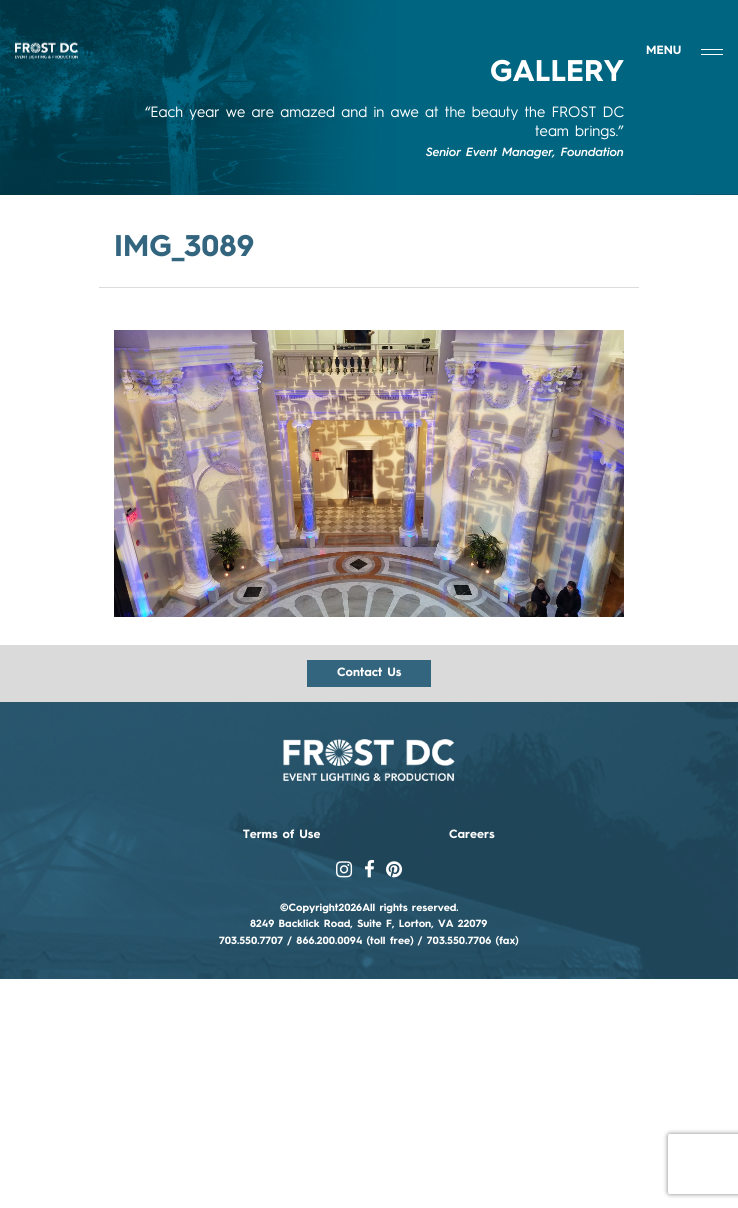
#include <cairo.h>
#include <math.h>
#include <stddef.h>

static cairo_t *ctx;

static void use_color(int r, int g, int b) {
    cairo_set_source_rgb(ctx, r / 255.0, g / 255.0, b / 255.0);
}

static void round_rect(double x, double y, double w, double h, double r) {
    cairo_new_sub_path(ctx);
    cairo_arc(ctx, x + w - r, y + h - r, r, 0, M_PI / 2);
    cairo_arc(ctx, x + r, y + h - r, r, M_PI / 2, M_PI);
    cairo_arc(ctx, x + r, y + r, r, M_PI, 1.5 * M_PI);
    cairo_arc(ctx, x + w - r, y + r, r, 1.5 * M_PI, 2 * M_PI);
    cairo_close_path(ctx);
}

static void shadow(double x, double y, double w, double h, double r, double blur, double alpha) {
    cairo_push_group_with_content(ctx, CAIRO_CONTENT_ALPHA);
    cairo_set_operator(ctx, CAIRO_OPERATOR_SOURCE);
    for (int i = 15; i >= -15 && fmin(w, h) + blur * i / 3 > 0; i -= 2) {
        double e = blur * i / 6;
        cairo_set_source_rgba(ctx, 0, 0, 0, alpha * erfc((i - 1) / 8.5) / 2);
        round_rect(x - e, y - e, w + 2 * e, h + 2 * e, fmax(0, fmin(r + e + blur * .6, fmin(w, h) / 2 + e)));
        cairo_fill(ctx);
    }
    cairo_pattern_t *soft = cairo_pop_group(ctx);
    cairo_mask(ctx, soft);
    cairo_pattern_destroy(soft);
}

static void picture(const char *path, double x, double y, double w, double h) {
    cairo_surface_t *image = cairo_image_surface_create_from_png(path);
    cairo_save(ctx);
    cairo_set_source_surface(ctx, image, x, y);
    cairo_rectangle(ctx, x, y, w, h);
    cairo_fill(ctx);
    cairo_restore(ctx);
    cairo_surface_destroy(image);
}

int main(void) {
    cairo_surface_t *surface = cairo_image_surface_create(CAIRO_FORMAT_RGB24, 738, 1208);
    ctx = cairo_create(surface);
    cairo_font_options_t *options = cairo_font_options_create();
    cairo_font_options_set_hint_metrics(options, CAIRO_HINT_METRICS_OFF);
    cairo_font_options_set_hint_style(options, CAIRO_HINT_STYLE_NONE);
    cairo_set_font_options(ctx, options);
    cairo_set_miter_limit(ctx, 4);
    use_color(255, 255, 255);
    cairo_paint(ctx);
    picture("img2.png", 0, 0, 738, 195);
    picture("img1.png", 15, 42, 63, 17);
    cairo_select_font_face(ctx, "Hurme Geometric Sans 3", CAIRO_FONT_SLANT_NORMAL, CAIRO_FONT_WEIGHT_BOLD);
    cairo_set_font_size(ctx, 12);
    use_color(255, 255, 255);
    cairo_move_to(ctx, 646, 54);
    cairo_show_text(ctx, "MENU");
    cairo_rectangle(ctx, 701, 49, 22, 1);
    cairo_fill(ctx);
    cairo_rectangle(ctx, 701, 54, 22, 1);
    cairo_fill(ctx);
    cairo_set_font_size(ctx, 30);
    cairo_move_to(ctx, 490, 81);
    cairo_show_text(ctx, "GALLERY");
    cairo_select_font_face(ctx, "Hurme Geometric Sans 3", CAIRO_FONT_SLANT_NORMAL, CAIRO_FONT_WEIGHT_NORMAL);
    cairo_set_font_size(ctx, 15);
    cairo_move_to(ctx, 145, 117);
    cairo_show_text(ctx, "“Each year we are amazed and in awe at the beauty the FROST DC");
    cairo_move_to(ctx, 535, 136);
    cairo_show_text(ctx, "team brings.”");
    cairo_select_font_face(ctx, "Hurme Geometric Sans 3 SemiBold", CAIRO_FONT_SLANT_ITALIC, CAIRO_FONT_WEIGHT_NORMAL);
    cairo_set_font_size(ctx, 12);
    cairo_move_to(ctx, 426, 156);
    cairo_show_text(ctx, "Senior Event Manager, Foundation");
    use_color(220, 220, 220);
    cairo_rectangle(ctx, 99, 287, 540, 1);
    cairo_fill(ctx);
    cairo_select_font_face(ctx, "Hurme Geometric Sans 3", CAIRO_FONT_SLANT_NORMAL, CAIRO_FONT_WEIGHT_BOLD);
    cairo_set_font_size(ctx, 30);
    use_color(52, 101, 127);
    cairo_move_to(ctx, 114, 256);
    cairo_show_text(ctx, "IMG_3089");
    picture("img3.png", 114, 330, 510, 287);
    use_color(218, 218, 218);
    cairo_rectangle(ctx, 0, 645, 738, 57);
    cairo_fill(ctx);
    use_color(52, 101, 127);
    cairo_rectangle(ctx, 307, 660, 124, 27);
    cairo_fill(ctx);
    cairo_set_font_size(ctx, 12);
    use_color(255, 255, 255);
    cairo_move_to(ctx, 337, 676);
    cairo_show_text(ctx, "Contact Us");
    picture("img4.png", 0, 702, 738, 277);
    picture("img5.png", 283, 739, 172, 42);
    cairo_move_to(ctx, 243, 838);
    cairo_show_text(ctx, "Terms of Use");
    cairo_move_to(ctx, 449, 838);
    cairo_show_text(ctx, "Careers");
    picture("img6.png", 336, 861, 17, 17);
    picture("img7.png", 365, 859, 10, 19);
    picture("img8.png", 386, 861, 17, 17);
    cairo_set_font_size(ctx, 10.5);
    cairo_move_to(ctx, 280, 911);
    cairo_show_text(ctx, "©Copyright2026All rights reserved.");
    cairo_move_to(ctx, 250, 927);
    cairo_show_text(ctx, "8249 Backlick Road, Suite F, Lorton, VA 22079");
    cairo_move_to(ctx, 219, 944);
    cairo_show_text(ctx, "703.550.7707 / 866.200.0094 (toll free) / 703.550.7706 (fax)");
    cairo_save(ctx);
    cairo_set_fill_rule(ctx, CAIRO_FILL_RULE_EVEN_ODD);
    cairo_new_path(ctx);
    cairo_move_to(ctx, 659, 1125);
    cairo_line_to(ctx, 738, 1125);
    cairo_line_to(ctx, 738, 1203);
    cairo_line_to(ctx, 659, 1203);
    cairo_close_path(ctx);
    cairo_move_to(ctx, 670, 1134);
    cairo_line_to(ctx, 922, 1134);
    cairo_curve_to(ctx, 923, 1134, 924, 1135, 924, 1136);
    cairo_line_to(ctx, 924, 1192);
    cairo_curve_to(ctx, 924, 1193, 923, 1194, 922, 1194);
    cairo_line_to(ctx, 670, 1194);
    cairo_curve_to(ctx, 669, 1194, 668, 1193, 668, 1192);
    cairo_line_to(ctx, 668, 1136);
    cairo_curve_to(ctx, 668, 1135, 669, 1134, 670, 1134);
    cairo_close_path(ctx);
    cairo_clip(ctx);
    use_color(128, 128, 128);
    shadow(668, 1134, 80, 60, 2, 2.5, 1);
    cairo_restore(ctx);
    cairo_surface_write_to_png(surface, "result.png");
    cairo_font_options_destroy(options);
    cairo_destroy(ctx);
    cairo_surface_destroy(surface);
    return 0;
}
